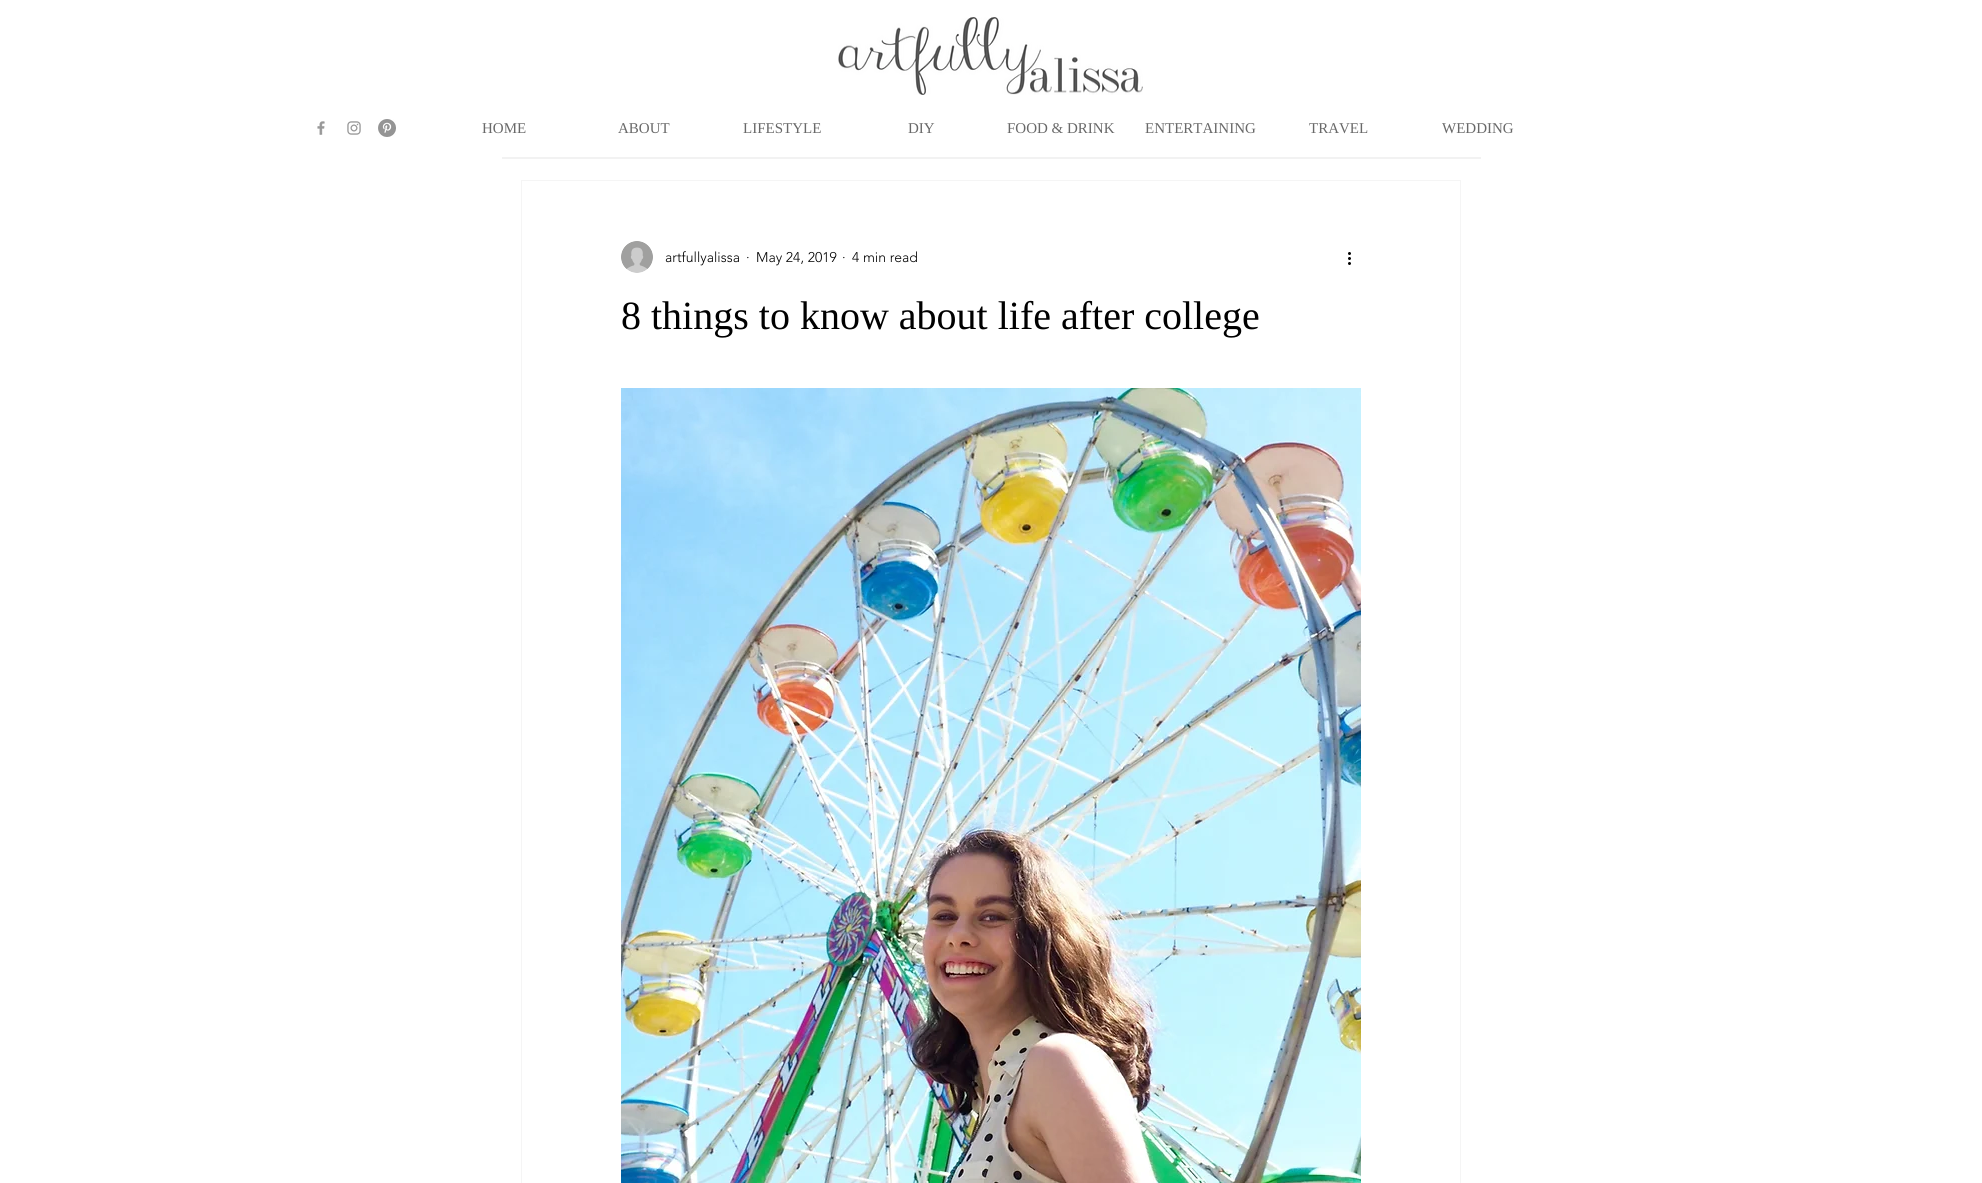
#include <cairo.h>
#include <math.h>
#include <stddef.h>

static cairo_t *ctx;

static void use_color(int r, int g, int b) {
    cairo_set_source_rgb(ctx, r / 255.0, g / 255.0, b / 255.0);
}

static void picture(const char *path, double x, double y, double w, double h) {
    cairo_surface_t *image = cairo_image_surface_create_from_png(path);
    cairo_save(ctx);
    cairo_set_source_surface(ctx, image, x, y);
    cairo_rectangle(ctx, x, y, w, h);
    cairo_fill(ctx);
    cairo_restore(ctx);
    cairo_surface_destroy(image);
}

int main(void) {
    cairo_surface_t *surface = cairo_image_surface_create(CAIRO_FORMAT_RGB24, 1982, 1183);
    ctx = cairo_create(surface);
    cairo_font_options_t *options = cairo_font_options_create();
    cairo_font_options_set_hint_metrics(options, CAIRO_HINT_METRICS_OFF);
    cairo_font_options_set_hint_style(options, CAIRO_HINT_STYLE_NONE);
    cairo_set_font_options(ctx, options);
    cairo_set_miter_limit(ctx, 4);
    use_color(255, 255, 255);
    cairo_paint(ctx);
    picture("img1.png", 838, 17, 305, 78);
    picture("img2.png", 317, 121, 8, 14);
    picture("img3.png", 347, 121, 14, 14);
    picture("img4.png", 378, 119, 18, 18);
    cairo_select_font_face(ctx, "Liberation Serif", CAIRO_FONT_SLANT_NORMAL, CAIRO_FONT_WEIGHT_NORMAL);
    cairo_set_font_size(ctx, 15);
    use_color(105, 105, 105);
    cairo_move_to(ctx, 482, 133);
    cairo_show_text(ctx, "HOME");
    cairo_move_to(ctx, 618, 133);
    cairo_show_text(ctx, "ABOUT");
    cairo_move_to(ctx, 743, 133);
    cairo_show_text(ctx, "LIFESTYLE");
    cairo_move_to(ctx, 908, 133);
    cairo_show_text(ctx, "DIY");
    cairo_move_to(ctx, 1007, 133);
    cairo_show_text(ctx, "FOOD & DRINK");
    cairo_move_to(ctx, 1145, 133);
    cairo_show_text(ctx, "ENTERTAINING");
    cairo_move_to(ctx, 1309, 133);
    cairo_show_text(ctx, "TRAVEL");
    cairo_move_to(ctx, 1442, 133);
    cairo_show_text(ctx, "WEDDING");
    use_color(242, 242, 242);
    cairo_rectangle(ctx, 502, 157, 979, 2);
    cairo_fill(ctx);
    cairo_rectangle(ctx, 521.5, 180.5, 939, 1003);
    use_color(245, 245, 245);
    cairo_set_line_width(ctx, 1);
    cairo_stroke(ctx);
    picture("img5.png", 621, 241, 32, 32);
    cairo_select_font_face(ctx, "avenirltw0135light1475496 Light", CAIRO_FONT_SLANT_NORMAL, CAIRO_FONT_WEIGHT_NORMAL);
    cairo_set_font_size(ctx, 14);
    use_color(0, 0, 0);
    cairo_move_to(ctx, 665, 262);
    cairo_show_text(ctx, "artfullyalissa");
    cairo_move_to(ctx, 746, 262);
    cairo_show_text(ctx, "·");
    cairo_move_to(ctx, 756, 262);
    cairo_show_text(ctx, "May 24, 2019");
    cairo_move_to(ctx, 842, 262);
    cairo_show_text(ctx, "·");
    cairo_move_to(ctx, 852, 262);
    cairo_show_text(ctx, "4 min read");
    picture("img6.png", 1348, 252, 3, 13);
    cairo_select_font_face(ctx, "Liberation Serif", CAIRO_FONT_SLANT_NORMAL, CAIRO_FONT_WEIGHT_NORMAL);
    cairo_set_font_size(ctx, 40);
    cairo_move_to(ctx, 621, 329);
    cairo_show_text(ctx, "8 things to know about life after college");
    picture("img7.png", 621, 388, 740, 795);
    cairo_surface_write_to_png(surface, "result.png");
    cairo_font_options_destroy(options);
    cairo_destroy(ctx);
    cairo_surface_destroy(surface);
    return 0;
}
